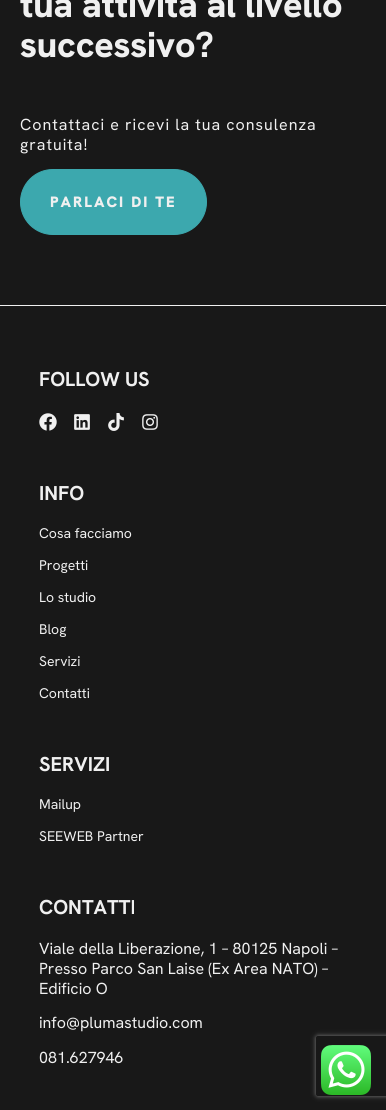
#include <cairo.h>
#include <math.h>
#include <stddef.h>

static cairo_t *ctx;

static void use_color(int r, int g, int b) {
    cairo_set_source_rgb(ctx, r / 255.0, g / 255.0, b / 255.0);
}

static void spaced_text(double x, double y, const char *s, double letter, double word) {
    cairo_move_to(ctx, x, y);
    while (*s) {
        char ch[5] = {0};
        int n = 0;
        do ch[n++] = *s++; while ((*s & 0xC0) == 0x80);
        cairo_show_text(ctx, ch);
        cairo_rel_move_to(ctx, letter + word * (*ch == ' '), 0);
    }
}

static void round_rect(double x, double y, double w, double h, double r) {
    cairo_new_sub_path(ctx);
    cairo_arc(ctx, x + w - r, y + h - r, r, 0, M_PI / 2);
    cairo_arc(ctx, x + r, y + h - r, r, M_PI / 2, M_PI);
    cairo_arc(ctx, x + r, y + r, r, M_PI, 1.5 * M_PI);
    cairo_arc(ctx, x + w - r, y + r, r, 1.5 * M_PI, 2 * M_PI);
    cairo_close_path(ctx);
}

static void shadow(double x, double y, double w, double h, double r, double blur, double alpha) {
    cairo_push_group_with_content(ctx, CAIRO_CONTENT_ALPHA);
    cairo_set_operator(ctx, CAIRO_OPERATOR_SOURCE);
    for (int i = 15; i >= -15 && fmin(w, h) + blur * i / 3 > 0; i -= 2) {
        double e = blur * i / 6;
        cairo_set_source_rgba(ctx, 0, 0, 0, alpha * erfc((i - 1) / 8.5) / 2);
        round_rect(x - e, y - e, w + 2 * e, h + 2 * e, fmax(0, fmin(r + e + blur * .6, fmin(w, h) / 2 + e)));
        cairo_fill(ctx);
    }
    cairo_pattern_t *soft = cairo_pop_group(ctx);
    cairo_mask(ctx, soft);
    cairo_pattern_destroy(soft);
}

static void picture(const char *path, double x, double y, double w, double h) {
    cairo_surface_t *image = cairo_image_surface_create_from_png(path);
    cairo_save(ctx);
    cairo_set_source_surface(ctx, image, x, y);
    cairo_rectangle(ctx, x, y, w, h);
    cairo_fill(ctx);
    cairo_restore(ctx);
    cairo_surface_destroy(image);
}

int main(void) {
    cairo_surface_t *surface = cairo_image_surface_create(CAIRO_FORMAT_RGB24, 386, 1110);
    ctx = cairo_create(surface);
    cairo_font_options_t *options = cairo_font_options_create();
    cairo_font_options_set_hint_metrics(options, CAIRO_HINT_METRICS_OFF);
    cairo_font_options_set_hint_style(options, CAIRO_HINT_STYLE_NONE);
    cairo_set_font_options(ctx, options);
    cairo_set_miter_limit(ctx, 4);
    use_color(24, 24, 24);
    cairo_paint(ctx);
    use_color(240, 240, 240);
    cairo_rectangle(ctx, 0, 305, 386, 1);
    cairo_fill(ctx);
    cairo_select_font_face(ctx, "Hanken Grotesk ExtraBold", CAIRO_FONT_SLANT_NORMAL, CAIRO_FONT_WEIGHT_NORMAL);
    cairo_set_font_size(ctx, 36);
    spaced_text(20, 17, "tua attività al livello", -0.25, 0);
    spaced_text(20, 57, "successivo?", -0.25, 0);
    cairo_select_font_face(ctx, "Hanken Grotesk", CAIRO_FONT_SLANT_NORMAL, CAIRO_FONT_WEIGHT_NORMAL);
    cairo_set_font_size(ctx, 16);
    spaced_text(20, 130, "Contattaci e ricevi la tua consulenza", 1, 0);
    spaced_text(20, 150, "gratuita!", 1, 0);
    use_color(60, 168, 174);
    round_rect(20.5, 169.5, 186, 65, 32.5);
    cairo_fill_preserve(ctx);
    cairo_set_line_width(ctx, 1);
    cairo_stroke(ctx);
    cairo_select_font_face(ctx, "Hanken Grotesk Black", CAIRO_FONT_SLANT_NORMAL, CAIRO_FONT_WEIGHT_NORMAL);
    cairo_set_font_size(ctx, 15);
    use_color(240, 240, 240);
    spaced_text(50, 207, "PARLACI DI TE", 2, 0);
    cairo_select_font_face(ctx, "Hanken Grotesk", CAIRO_FONT_SLANT_NORMAL, CAIRO_FONT_WEIGHT_BOLD);
    cairo_set_font_size(ctx, 20);
    cairo_move_to(ctx, 39, 386);
    cairo_show_text(ctx, "FOLLOW US");
    picture("img1.png", 39, 413, 18, 18);
    picture("img2.png", 74, 414, 16, 16);
    picture("img3.png", 108, 413, 16, 18);
    picture("img4.png", 142, 414, 16, 16);
    cairo_move_to(ctx, 39, 500);
    cairo_show_text(ctx, "INFO");
    cairo_select_font_face(ctx, "Hanken Grotesk", CAIRO_FONT_SLANT_NORMAL, CAIRO_FONT_WEIGHT_NORMAL);
    cairo_set_font_size(ctx, 14);
    cairo_move_to(ctx, 39, 538);
    cairo_show_text(ctx, "Cosa facciamo");
    cairo_move_to(ctx, 39, 570);
    cairo_show_text(ctx, "Progetti");
    cairo_move_to(ctx, 39, 602);
    cairo_show_text(ctx, "Lo studio");
    cairo_move_to(ctx, 39, 634);
    cairo_show_text(ctx, "Blog");
    cairo_move_to(ctx, 39, 666);
    cairo_show_text(ctx, "Servizi");
    cairo_move_to(ctx, 39, 698);
    cairo_show_text(ctx, "Contatti");
    cairo_select_font_face(ctx, "Hanken Grotesk", CAIRO_FONT_SLANT_NORMAL, CAIRO_FONT_WEIGHT_BOLD);
    cairo_set_font_size(ctx, 20);
    cairo_move_to(ctx, 39, 771);
    cairo_show_text(ctx, "SERVIZI");
    cairo_select_font_face(ctx, "Hanken Grotesk", CAIRO_FONT_SLANT_NORMAL, CAIRO_FONT_WEIGHT_NORMAL);
    cairo_set_font_size(ctx, 14);
    cairo_move_to(ctx, 39, 809);
    cairo_show_text(ctx, "Mailup");
    cairo_move_to(ctx, 39, 841);
    cairo_show_text(ctx, "SEEWEB Partner");
    cairo_select_font_face(ctx, "Hanken Grotesk", CAIRO_FONT_SLANT_NORMAL, CAIRO_FONT_WEIGHT_BOLD);
    cairo_set_font_size(ctx, 20);
    cairo_move_to(ctx, 39, 914);
    cairo_show_text(ctx, "CONTATTI");
    cairo_select_font_face(ctx, "Hanken Grotesk", CAIRO_FONT_SLANT_NORMAL, CAIRO_FONT_WEIGHT_NORMAL);
    cairo_set_font_size(ctx, 16);
    cairo_move_to(ctx, 39, 954);
    cairo_show_text(ctx, "Viale della Liberazione, 1 – 80125 Napoli –");
    cairo_move_to(ctx, 39, 974);
    cairo_show_text(ctx, "Presso Parco San Laise (Ex Area NATO) –");
    cairo_move_to(ctx, 39, 994);
    cairo_show_text(ctx, "Edificio O");
    cairo_move_to(ctx, 39, 1028);
    cairo_show_text(ctx, "info@plumastudio.com");
    cairo_move_to(ctx, 39, 1063);
    cairo_show_text(ctx, "081.627946");
    cairo_save(ctx);
    cairo_set_fill_rule(ctx, CAIRO_FILL_RULE_EVEN_ODD);
    cairo_new_path(ctx);
    cairo_move_to(ctx, 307, 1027);
    cairo_line_to(ctx, 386, 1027);
    cairo_line_to(ctx, 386, 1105);
    cairo_line_to(ctx, 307, 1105);
    cairo_close_path(ctx);
    cairo_move_to(ctx, 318, 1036);
    cairo_line_to(ctx, 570, 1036);
    cairo_curve_to(ctx, 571, 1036, 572, 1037, 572, 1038);
    cairo_line_to(ctx, 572, 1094);
    cairo_curve_to(ctx, 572, 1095, 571, 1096, 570, 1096);
    cairo_line_to(ctx, 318, 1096);
    cairo_curve_to(ctx, 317, 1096, 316, 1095, 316, 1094);
    cairo_line_to(ctx, 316, 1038);
    cairo_curve_to(ctx, 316, 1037, 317, 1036, 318, 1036);
    cairo_close_path(ctx);
    cairo_clip(ctx);
    use_color(128, 128, 128);
    shadow(316, 1036, 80, 60, 2, 2.5, 1);
    cairo_restore(ctx);
    picture("img5.png", 321, 1045, 50, 50);
    cairo_surface_write_to_png(surface, "result.png");
    cairo_font_options_destroy(options);
    cairo_destroy(ctx);
    cairo_surface_destroy(surface);
    return 0;
}
